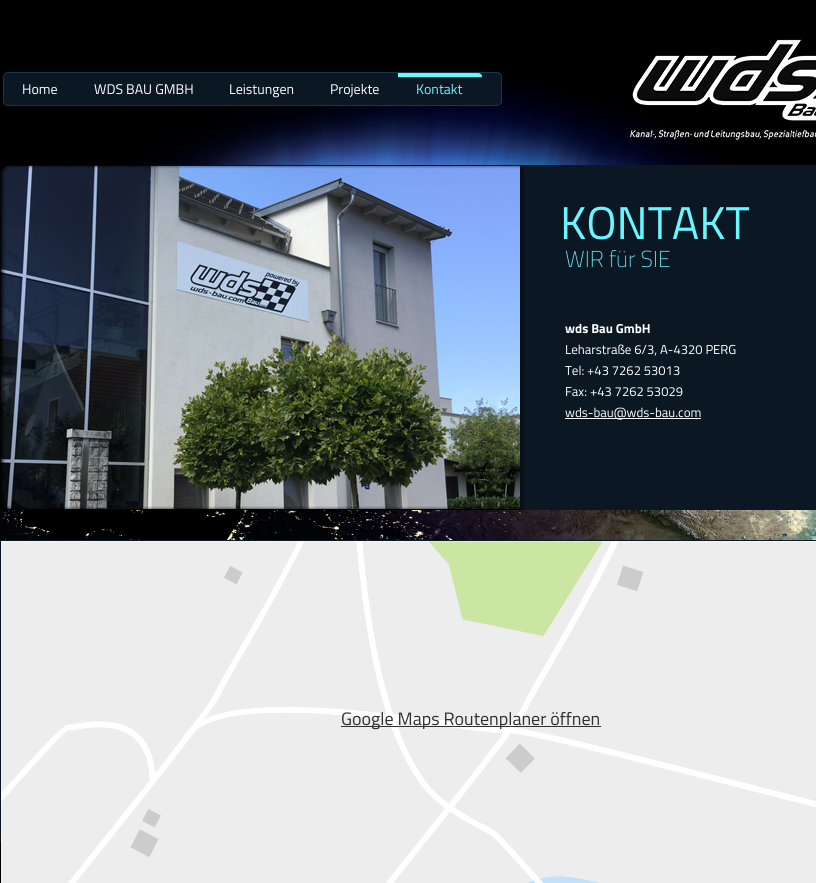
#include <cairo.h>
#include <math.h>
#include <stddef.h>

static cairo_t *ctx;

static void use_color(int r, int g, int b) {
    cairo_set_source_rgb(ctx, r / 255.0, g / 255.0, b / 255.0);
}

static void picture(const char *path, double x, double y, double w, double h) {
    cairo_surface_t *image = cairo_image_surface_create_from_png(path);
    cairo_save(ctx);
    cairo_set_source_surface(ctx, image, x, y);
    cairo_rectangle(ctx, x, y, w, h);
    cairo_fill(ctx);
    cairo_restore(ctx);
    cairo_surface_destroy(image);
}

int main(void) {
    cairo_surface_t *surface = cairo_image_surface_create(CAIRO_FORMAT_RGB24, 816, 883);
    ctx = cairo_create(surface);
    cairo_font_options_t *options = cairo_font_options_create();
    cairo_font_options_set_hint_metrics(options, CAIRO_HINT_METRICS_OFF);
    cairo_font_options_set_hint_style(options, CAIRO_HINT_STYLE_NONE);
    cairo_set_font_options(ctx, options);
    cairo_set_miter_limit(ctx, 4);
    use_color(0, 0, 0);
    cairo_paint(ctx);
    picture("img1.png", 0, 74, 816, 809);
    picture("img2.png", 3, 72, 499, 34);
    cairo_select_font_face(ctx, "Titillium Web", CAIRO_FONT_SLANT_NORMAL, CAIRO_FONT_WEIGHT_NORMAL);
    cairo_set_font_size(ctx, 14);
    use_color(255, 255, 255);
    cairo_move_to(ctx, 22, 94);
    cairo_show_text(ctx, "Home");
    cairo_move_to(ctx, 94, 94);
    cairo_show_text(ctx, "WDS BAU GMBH");
    cairo_move_to(ctx, 229, 94);
    cairo_show_text(ctx, "Leistungen");
    cairo_move_to(ctx, 330, 94);
    cairo_show_text(ctx, "Projekte");
    picture("img3.png", 398, 73, 84, 5);
    use_color(104, 246, 255);
    cairo_move_to(ctx, 416, 94);
    cairo_show_text(ctx, "Kontakt");
    picture("img4.png", 630, 39, 186, 101);
    picture("img5.png", 0, 165, 520, 345);
    picture("img6.png", 0, 165, 520, 345);
    use_color(12, 23, 36);
    cairo_rectangle(ctx, 520, 165, 296, 345);
    cairo_fill(ctx);
    picture("img7.png", 520, 165, 5, 345);
    cairo_set_font_size(ctx, 46);
    use_color(104, 246, 255);
    cairo_move_to(ctx, 560, 239);
    cairo_show_text(ctx, "KONTAKT");
    cairo_select_font_face(ctx, "Titillium Web Light", CAIRO_FONT_SLANT_NORMAL, CAIRO_FONT_WEIGHT_NORMAL);
    cairo_set_font_size(ctx, 23);
    cairo_move_to(ctx, 565, 267);
    cairo_show_text(ctx, "WIR für SIE");
    cairo_select_font_face(ctx, "Titillium Web", CAIRO_FONT_SLANT_NORMAL, CAIRO_FONT_WEIGHT_BOLD);
    cairo_set_font_size(ctx, 13);
    use_color(255, 255, 255);
    cairo_move_to(ctx, 565, 333);
    cairo_show_text(ctx, "wds Bau GmbH");
    cairo_select_font_face(ctx, "Titillium Web", CAIRO_FONT_SLANT_NORMAL, CAIRO_FONT_WEIGHT_NORMAL);
    cairo_move_to(ctx, 565, 354);
    cairo_show_text(ctx, "Leharstraße 6/3, A-4320 PERG");
    cairo_move_to(ctx, 565, 375);
    cairo_show_text(ctx, "Tel: +43 7262 53013");
    cairo_move_to(ctx, 565, 396);
    cairo_show_text(ctx, "Fax: +43 7262 53029");
    cairo_rectangle(ctx, 565, 418, 136, 1);
    cairo_fill(ctx);
    cairo_move_to(ctx, 565, 417);
    cairo_show_text(ctx, "wds-bau@wds-bau.com");
    cairo_rectangle(ctx, 0.5, 540.5, 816, 301);
    use_color(12, 23, 36);
    cairo_set_line_width(ctx, 1);
    cairo_stroke(ctx);
    picture("img8.png", 1, 541, 815, 342);
    use_color(48, 48, 48);
    cairo_rectangle(ctx, 341, 726, 260, 1);
    cairo_fill(ctx);
    cairo_set_font_size(ctx, 18);
    cairo_move_to(ctx, 341, 725);
    cairo_show_text(ctx, "Google Maps Routenplaner öffnen");
    cairo_surface_write_to_png(surface, "result.png");
    cairo_font_options_destroy(options);
    cairo_destroy(ctx);
    cairo_surface_destroy(surface);
    return 0;
}
